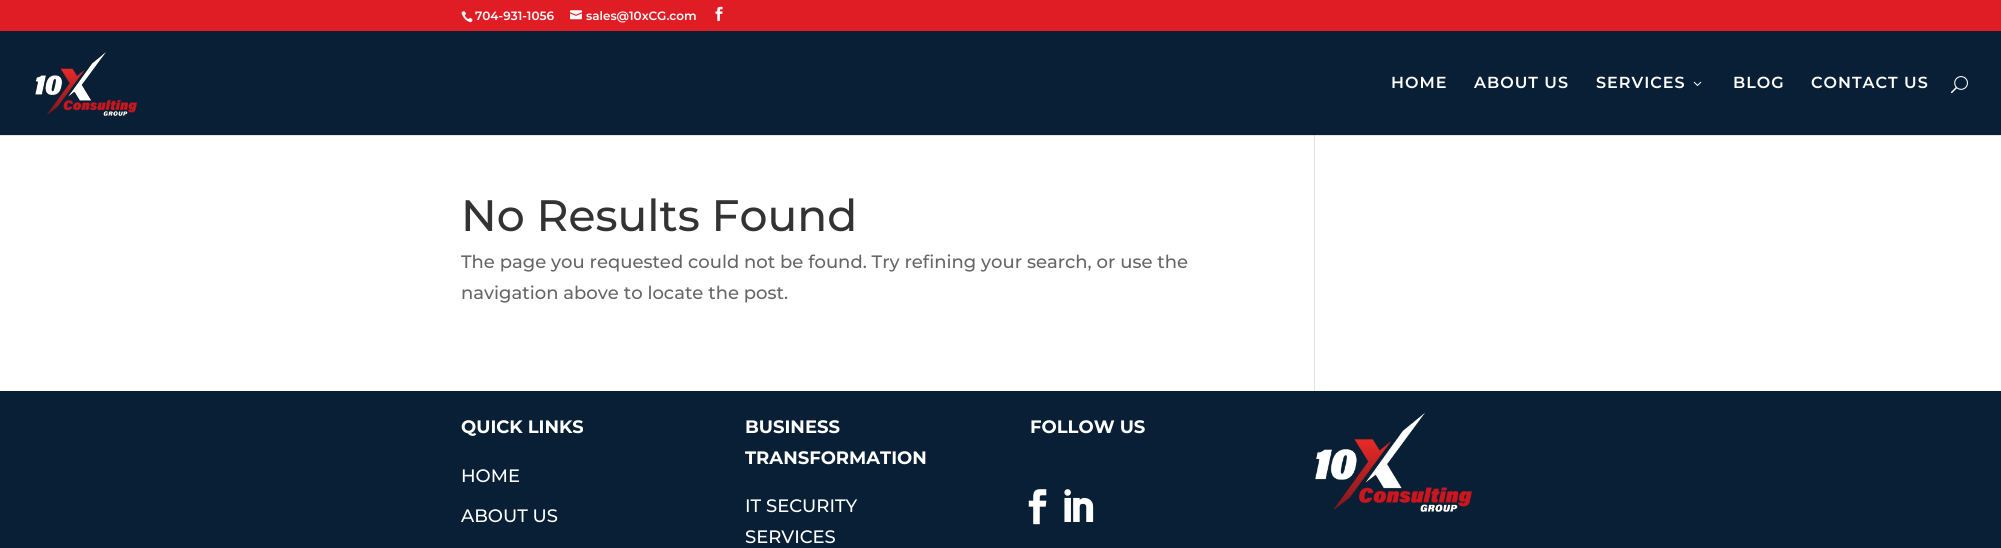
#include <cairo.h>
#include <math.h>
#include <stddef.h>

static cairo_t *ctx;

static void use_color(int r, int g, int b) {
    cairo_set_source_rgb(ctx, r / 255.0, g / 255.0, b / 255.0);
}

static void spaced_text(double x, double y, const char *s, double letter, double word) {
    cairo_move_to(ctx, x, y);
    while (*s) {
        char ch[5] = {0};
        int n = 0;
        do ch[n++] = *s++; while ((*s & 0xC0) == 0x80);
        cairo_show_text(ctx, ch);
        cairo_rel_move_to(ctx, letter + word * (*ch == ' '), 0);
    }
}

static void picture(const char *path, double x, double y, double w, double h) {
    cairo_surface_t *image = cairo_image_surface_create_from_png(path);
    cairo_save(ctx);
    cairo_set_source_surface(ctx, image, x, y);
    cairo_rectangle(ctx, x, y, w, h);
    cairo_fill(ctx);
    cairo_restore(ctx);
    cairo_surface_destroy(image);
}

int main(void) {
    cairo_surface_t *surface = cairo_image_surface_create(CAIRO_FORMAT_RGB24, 2001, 548);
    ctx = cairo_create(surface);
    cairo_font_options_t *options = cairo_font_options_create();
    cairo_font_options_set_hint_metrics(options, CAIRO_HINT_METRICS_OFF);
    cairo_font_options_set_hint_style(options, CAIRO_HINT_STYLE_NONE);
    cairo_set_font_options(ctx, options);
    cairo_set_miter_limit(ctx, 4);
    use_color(255, 255, 255);
    cairo_paint(ctx);
    use_color(230, 230, 230);
    cairo_rectangle(ctx, 0, 135, 2001, 1);
    cairo_fill(ctx);
    use_color(224, 28, 37);
    cairo_rectangle(ctx, 0, 0, 2001, 31);
    cairo_fill(ctx);
    picture("img1.png", 461, 11, 12, 12);
    cairo_select_font_face(ctx, "Montserrat SemiBold", CAIRO_FONT_SLANT_NORMAL, CAIRO_FONT_WEIGHT_NORMAL);
    cairo_set_font_size(ctx, 12);
    use_color(255, 255, 255);
    cairo_move_to(ctx, 475, 20);
    cairo_show_text(ctx, "704-931-1056");
    picture("img2.png", 570, 10, 12, 10);
    cairo_move_to(ctx, 586, 20);
    cairo_show_text(ctx, "sales@10xCG.com");
    picture("img3.png", 715, 6, 8, 15);
    use_color(8, 31, 54);
    cairo_rectangle(ctx, 0, 31, 2001, 104);
    cairo_fill(ctx);
    picture("img4.png", 35, 51, 102, 65);
    cairo_set_font_size(ctx, 16);
    use_color(255, 255, 255);
    spaced_text(1391, 88, "HOME", 1, 0);
    spaced_text(1474, 88, "ABOUT US", 1, 0);
    spaced_text(1596, 88, "SERVICES", 1, 0);
    picture("img5.png", 1693, 81, 9, 5);
    spaced_text(1733, 88, "BLOG", 1, 0);
    spaced_text(1811, 88, "CONTACT US", 1, 0);
    picture("img6.png", 1951, 76, 17, 18);
    cairo_select_font_face(ctx, "Montserrat Medium", CAIRO_FONT_SLANT_NORMAL, CAIRO_FONT_WEIGHT_NORMAL);
    cairo_set_font_size(ctx, 44);
    use_color(51, 51, 51);
    cairo_move_to(ctx, 461, 231);
    cairo_show_text(ctx, "No Results Found");
    cairo_set_font_size(ctx, 18);
    use_color(102, 102, 102);
    cairo_move_to(ctx, 461, 268);
    cairo_show_text(ctx, "The page you requested could not be found. Try refining your search, or use the");
    cairo_move_to(ctx, 461, 299);
    cairo_show_text(ctx, "navigation above to locate the post.");
    use_color(226, 226, 226);
    cairo_rectangle(ctx, 1314, 135, 1, 256);
    cairo_fill(ctx);
    use_color(203, 203, 203);
    cairo_rectangle(ctx, 1314, 135, 1, 1);
    cairo_fill(ctx);
    use_color(8, 31, 54);
    cairo_rectangle(ctx, 0, 391, 2001, 157);
    cairo_fill(ctx);
    cairo_select_font_face(ctx, "Montserrat", CAIRO_FONT_SLANT_NORMAL, CAIRO_FONT_WEIGHT_BOLD);
    use_color(255, 255, 255);
    cairo_move_to(ctx, 461, 433);
    cairo_show_text(ctx, "QUICK LINKS");
    cairo_select_font_face(ctx, "Montserrat Medium", CAIRO_FONT_SLANT_NORMAL, CAIRO_FONT_WEIGHT_NORMAL);
    cairo_move_to(ctx, 461, 482);
    cairo_show_text(ctx, "HOME");
    cairo_move_to(ctx, 461, 522);
    cairo_show_text(ctx, "ABOUT US");
    cairo_select_font_face(ctx, "Montserrat", CAIRO_FONT_SLANT_NORMAL, CAIRO_FONT_WEIGHT_BOLD);
    cairo_move_to(ctx, 745, 433);
    cairo_show_text(ctx, "BUSINESS");
    cairo_move_to(ctx, 745, 464);
    cairo_show_text(ctx, "TRANSFORMATION");
    cairo_select_font_face(ctx, "Montserrat Medium", CAIRO_FONT_SLANT_NORMAL, CAIRO_FONT_WEIGHT_NORMAL);
    cairo_move_to(ctx, 745, 512);
    cairo_show_text(ctx, "IT SECURITY");
    cairo_move_to(ctx, 745, 543);
    cairo_show_text(ctx, "SERVICES");
    cairo_select_font_face(ctx, "Montserrat", CAIRO_FONT_SLANT_NORMAL, CAIRO_FONT_WEIGHT_BOLD);
    cairo_move_to(ctx, 1030, 433);
    cairo_show_text(ctx, "FOLLOW US");
    picture("img7.png", 1028, 489, 19, 36);
    picture("img8.png", 1064, 489, 30, 33);
    picture("img9.png", 1315, 412, 157, 100);
    cairo_surface_write_to_png(surface, "result.png");
    cairo_font_options_destroy(options);
    cairo_destroy(ctx);
    cairo_surface_destroy(surface);
    return 0;
}
